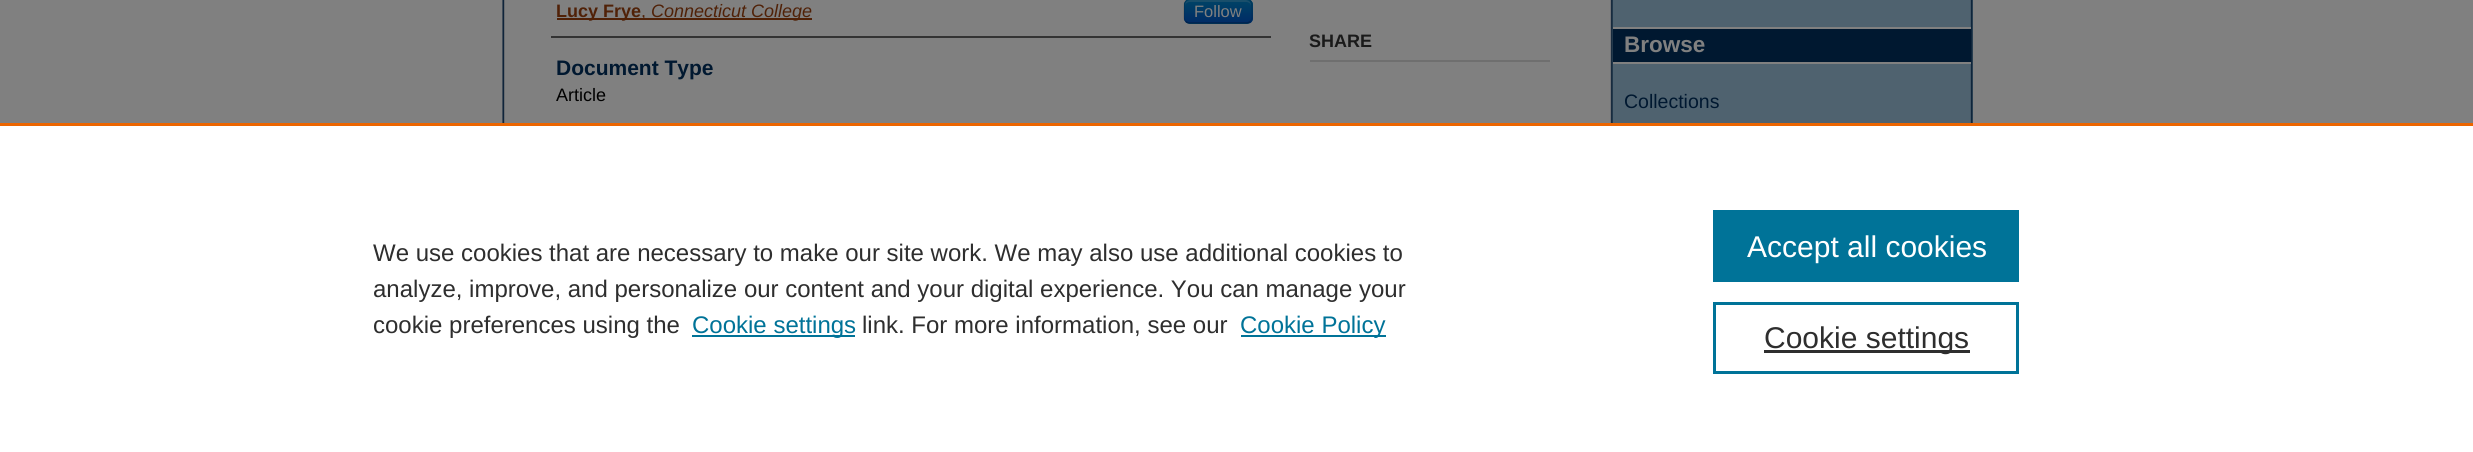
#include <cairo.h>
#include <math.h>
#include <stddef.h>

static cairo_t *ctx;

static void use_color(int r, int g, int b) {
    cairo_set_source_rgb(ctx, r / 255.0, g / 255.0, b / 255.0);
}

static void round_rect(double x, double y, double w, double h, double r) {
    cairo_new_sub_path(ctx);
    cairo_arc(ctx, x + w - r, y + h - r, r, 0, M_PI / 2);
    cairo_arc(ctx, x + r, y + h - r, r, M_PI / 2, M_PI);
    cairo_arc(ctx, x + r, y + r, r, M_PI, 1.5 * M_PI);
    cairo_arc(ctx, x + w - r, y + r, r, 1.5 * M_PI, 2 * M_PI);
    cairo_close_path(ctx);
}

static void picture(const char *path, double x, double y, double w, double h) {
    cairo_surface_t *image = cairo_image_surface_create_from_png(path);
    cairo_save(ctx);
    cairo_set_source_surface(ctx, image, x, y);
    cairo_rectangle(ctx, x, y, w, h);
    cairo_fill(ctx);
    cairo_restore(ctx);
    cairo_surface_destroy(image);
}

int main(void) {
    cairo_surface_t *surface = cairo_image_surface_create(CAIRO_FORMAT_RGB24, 2473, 452);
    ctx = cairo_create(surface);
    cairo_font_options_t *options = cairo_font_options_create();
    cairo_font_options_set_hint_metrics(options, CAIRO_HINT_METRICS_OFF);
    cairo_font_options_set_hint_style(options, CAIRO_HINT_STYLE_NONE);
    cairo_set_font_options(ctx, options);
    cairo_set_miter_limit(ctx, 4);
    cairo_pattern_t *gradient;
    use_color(128, 128, 128);
    cairo_paint(ctx);
    use_color(79, 98, 111);
    cairo_rectangle(ctx, 1972, 0, 1, 123);
    cairo_fill(ctx);
    picture("img1.png", 502, 0, 1471, 123);
    use_color(51, 51, 51);
    cairo_rectangle(ctx, 551, 36, 720, 2);
    cairo_fill(ctx);
    use_color(80, 33, 7);
    cairo_rectangle(ctx, 557, 18, 255, 2);
    cairo_fill(ctx);
    cairo_select_font_face(ctx, "Liberation Sans", CAIRO_FONT_SLANT_NORMAL, CAIRO_FONT_WEIGHT_BOLD);
    cairo_set_font_size(ctx, 18);
    cairo_move_to(ctx, 556, 17);
    cairo_show_text(ctx, "Lucy Frye");
    cairo_select_font_face(ctx, "Liberation Sans", CAIRO_FONT_SLANT_NORMAL, CAIRO_FONT_WEIGHT_NORMAL);
    cairo_move_to(ctx, 641, 17);
    cairo_show_text(ctx, ",");
    cairo_select_font_face(ctx, "Liberation Sans", CAIRO_FONT_SLANT_ITALIC, CAIRO_FONT_WEIGHT_NORMAL);
    cairo_move_to(ctx, 651, 17);
    cairo_show_text(ctx, "Connecticut College");
    use_color(0, 58, 102);
    round_rect(1184, -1, 69, 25, 6);
    cairo_fill(ctx);
    cairo_save(ctx);
    round_rect(1184, -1, 69, 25, 6);
    cairo_clip(ctx);
    gradient = cairo_pattern_create_linear(1218, 0, 1218, 23);
    cairo_pattern_add_color_stop_rgba(gradient, 0, 0, 0.267, 0.4, 1);
    cairo_pattern_add_color_stop_rgba(gradient, 1, 0, 0.169, 0.4, 1);
    cairo_set_source(ctx, gradient);
    cairo_pattern_destroy(gradient);
    cairo_rectangle(ctx, 1184, 0, 69, 23);
    cairo_fill(ctx);
    cairo_restore(ctx);
    cairo_set_source_rgba(ctx, 0.502, 0.502, 0.502, 0.2);
    cairo_new_path(ctx);
    cairo_move_to(ctx, 1190, 2);
    cairo_line_to(ctx, 1246, 2);
    cairo_curve_to(ctx, 1249, 2, 1251, 4, 1251, 6);
    cairo_curve_to(ctx, 1251, -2, 1243, 0, 1237, 0);
    cairo_line_to(ctx, 1199, 0);
    cairo_curve_to(ctx, 1193, 0, 1185, -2, 1185, 6);
    cairo_curve_to(ctx, 1185, 4, 1187, 2, 1190, 2);
    cairo_close_path(ctx);
    cairo_fill(ctx);
    cairo_new_path(ctx);
    cairo_move_to(ctx, 1250, 21.5);
    cairo_curve_to(ctx, 1249, 22.5, 1248, 23, 1246.5, 23);
    cairo_line_to(ctx, 1189.5, 23);
    cairo_curve_to(ctx, 1188, 23, 1187, 22.5, 1186, 21.5);
    cairo_set_source_rgba(ctx, 0, 0, 0, 0.25);
    cairo_set_line_width(ctx, 1.5);
    cairo_stroke(ctx);
    cairo_new_path(ctx);
    cairo_move_to(ctx, 1186, 21.5);
    cairo_curve_to(ctx, 1183, 19, 1184, 14.5, 1184, 11.5);
    cairo_curve_to(ctx, 1184, -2, 1185, -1, 1199, -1);
    cairo_line_to(ctx, 1237, -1);
    cairo_curve_to(ctx, 1251, -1, 1252, -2, 1252, 11);
    cairo_curve_to(ctx, 1252, 14.5, 1253, 19, 1250, 21.5);
    cairo_set_source_rgba(ctx, 0, 0, 0, 0.1);
    cairo_stroke(ctx);
    cairo_select_font_face(ctx, "Liberation Sans", CAIRO_FONT_SLANT_NORMAL, CAIRO_FONT_WEIGHT_NORMAL);
    cairo_set_font_size(ctx, 16.5);
    use_color(128, 128, 128);
    cairo_move_to(ctx, 1194, 17);
    cairo_show_text(ctx, "Follow");
    cairo_select_font_face(ctx, "Liberation Sans", CAIRO_FONT_SLANT_NORMAL, CAIRO_FONT_WEIGHT_BOLD);
    cairo_set_font_size(ctx, 21);
    use_color(0, 24, 48);
    cairo_move_to(ctx, 556, 75);
    cairo_show_text(ctx, "Document Type");
    cairo_select_font_face(ctx, "Liberation Sans", CAIRO_FONT_SLANT_NORMAL, CAIRO_FONT_WEIGHT_NORMAL);
    cairo_set_font_size(ctx, 18);
    use_color(0, 0, 0);
    cairo_move_to(ctx, 556, 101);
    cairo_show_text(ctx, "Article");
    use_color(111, 111, 111);
    cairo_rectangle(ctx, 1310, 60, 240, 2);
    cairo_fill(ctx);
    cairo_select_font_face(ctx, "Liberation Sans", CAIRO_FONT_SLANT_NORMAL, CAIRO_FONT_WEIGHT_BOLD);
    use_color(26, 26, 26);
    cairo_move_to(ctx, 1309, 47);
    cairo_show_text(ctx, "SHARE");
    use_color(0, 24, 48);
    cairo_rectangle(ctx, 1613, 29, 358, 33);
    cairo_fill(ctx);
    use_color(128, 128, 128);
    cairo_rectangle(ctx, 1613, 27, 358, 2);
    cairo_fill(ctx);
    cairo_rectangle(ctx, 1613, 62, 358, 2);
    cairo_fill(ctx);
    cairo_set_font_size(ctx, 22.5);
    cairo_move_to(ctx, 1624, 52);
    cairo_show_text(ctx, "Browse");
    cairo_select_font_face(ctx, "Liberation Sans", CAIRO_FONT_SLANT_NORMAL, CAIRO_FONT_WEIGHT_NORMAL);
    cairo_set_font_size(ctx, 19.5);
    use_color(0, 24, 48);
    cairo_move_to(ctx, 1624, 108);
    cairo_show_text(ctx, "Collections");
    use_color(255, 255, 255);
    cairo_rectangle(ctx, 0, 126, 2473, 326);
    cairo_fill(ctx);
    use_color(235, 101, 0);
    cairo_rectangle(ctx, 0, 123, 2473, 3);
    cairo_fill(ctx);
    cairo_set_font_size(ctx, 24);
    use_color(46, 46, 46);
    cairo_move_to(ctx, 373, 261);
    cairo_show_text(ctx, "We use cookies that are necessary to make our site work. We may also use additional cookies to");
    cairo_move_to(ctx, 373, 297);
    cairo_show_text(ctx, "analyze, improve, and personalize our content and your digital experience. You can manage your");
    cairo_move_to(ctx, 373, 333);
    cairo_show_text(ctx, "cookie preferences using the");
    use_color(0, 115, 152);
    cairo_rectangle(ctx, 692, 335, 163, 2);
    cairo_fill(ctx);
    cairo_move_to(ctx, 692, 333);
    cairo_show_text(ctx, "Cookie settings");
    use_color(46, 46, 46);
    cairo_move_to(ctx, 862, 333);
    cairo_show_text(ctx, "link. For more information, see our");
    use_color(0, 115, 152);
    cairo_rectangle(ctx, 1241, 335, 145, 2);
    cairo_fill(ctx);
    cairo_move_to(ctx, 1240, 333);
    cairo_show_text(ctx, "Cookie Policy");
    cairo_rectangle(ctx, 1713, 210, 306, 72);
    cairo_fill(ctx);
    cairo_set_font_size(ctx, 30);
    use_color(255, 255, 255);
    cairo_move_to(ctx, 1747, 257);
    cairo_show_text(ctx, "Accept all cookies");
    cairo_rectangle(ctx, 1714.5, 303.5, 303, 69);
    use_color(0, 115, 152);
    cairo_set_line_width(ctx, 3);
    cairo_stroke(ctx);
    use_color(46, 46, 46);
    cairo_rectangle(ctx, 1764, 350, 206, 3);
    cairo_fill(ctx);
    cairo_move_to(ctx, 1764, 348);
    cairo_show_text(ctx, "Cookie settings");
    cairo_surface_write_to_png(surface, "result.png");
    cairo_font_options_destroy(options);
    cairo_destroy(ctx);
    cairo_surface_destroy(surface);
    return 0;
}
